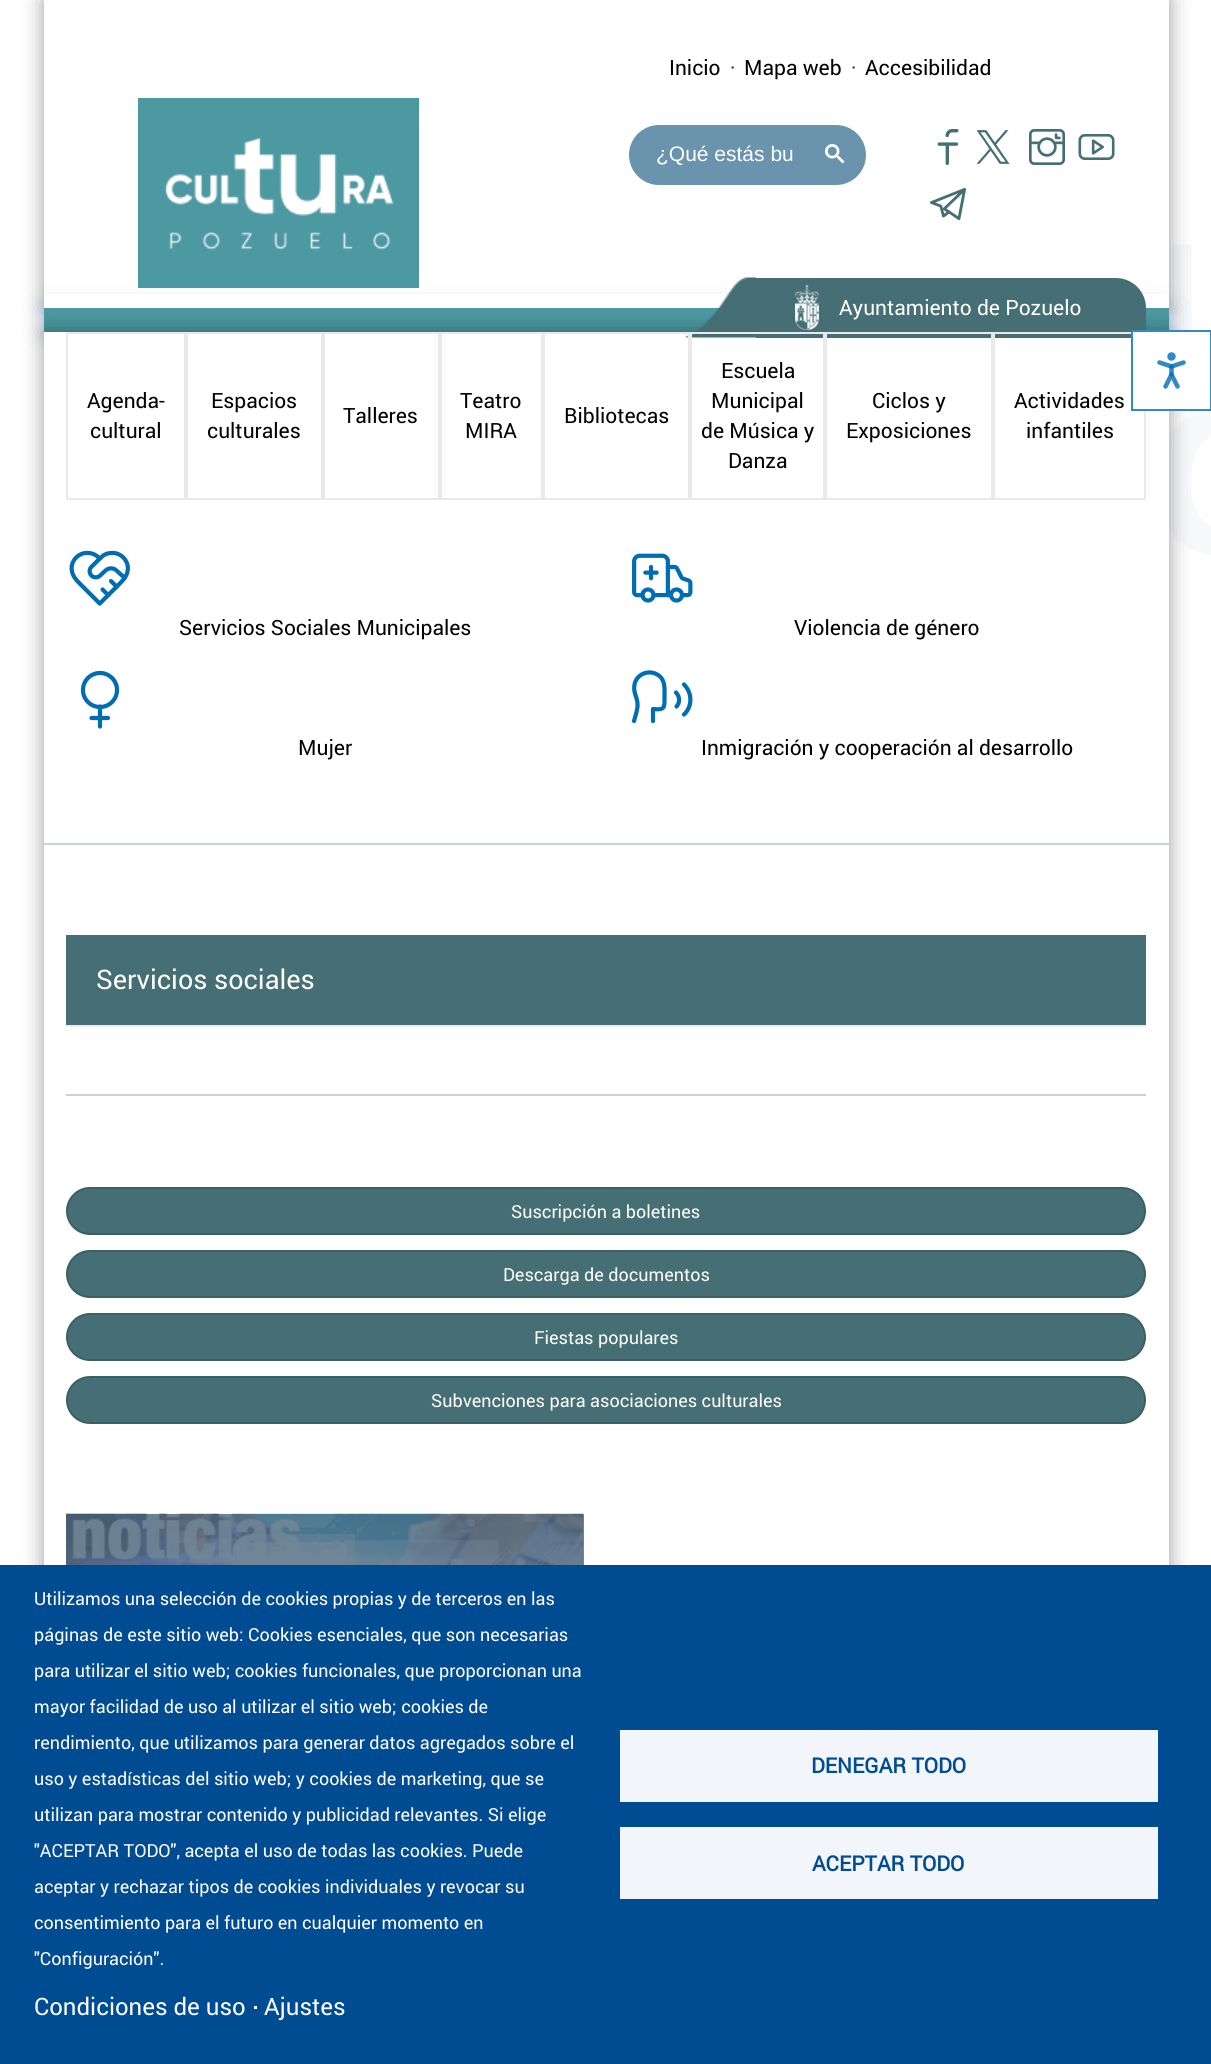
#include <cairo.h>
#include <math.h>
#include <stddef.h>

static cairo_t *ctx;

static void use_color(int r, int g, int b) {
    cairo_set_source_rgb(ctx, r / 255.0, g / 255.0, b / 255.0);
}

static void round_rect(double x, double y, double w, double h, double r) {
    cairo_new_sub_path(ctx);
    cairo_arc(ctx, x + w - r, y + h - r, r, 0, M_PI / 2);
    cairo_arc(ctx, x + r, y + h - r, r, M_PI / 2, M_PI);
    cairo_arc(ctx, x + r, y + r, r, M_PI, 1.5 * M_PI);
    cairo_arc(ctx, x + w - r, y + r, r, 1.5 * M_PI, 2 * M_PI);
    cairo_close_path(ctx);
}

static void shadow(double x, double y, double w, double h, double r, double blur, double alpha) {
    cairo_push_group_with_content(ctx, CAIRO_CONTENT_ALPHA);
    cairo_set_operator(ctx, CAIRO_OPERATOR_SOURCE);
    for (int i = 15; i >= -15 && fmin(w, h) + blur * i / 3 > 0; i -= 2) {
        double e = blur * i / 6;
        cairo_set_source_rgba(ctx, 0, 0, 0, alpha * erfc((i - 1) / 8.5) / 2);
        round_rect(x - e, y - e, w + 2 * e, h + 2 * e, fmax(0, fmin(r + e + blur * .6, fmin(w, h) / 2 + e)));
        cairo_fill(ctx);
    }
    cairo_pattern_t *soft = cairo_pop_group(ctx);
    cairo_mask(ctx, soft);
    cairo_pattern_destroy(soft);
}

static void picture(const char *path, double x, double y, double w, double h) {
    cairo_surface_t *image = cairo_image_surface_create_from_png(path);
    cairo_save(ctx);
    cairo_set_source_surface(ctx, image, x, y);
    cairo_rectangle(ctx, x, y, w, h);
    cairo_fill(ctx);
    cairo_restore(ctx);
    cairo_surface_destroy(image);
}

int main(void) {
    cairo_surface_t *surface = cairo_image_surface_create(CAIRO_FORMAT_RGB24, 1211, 2064);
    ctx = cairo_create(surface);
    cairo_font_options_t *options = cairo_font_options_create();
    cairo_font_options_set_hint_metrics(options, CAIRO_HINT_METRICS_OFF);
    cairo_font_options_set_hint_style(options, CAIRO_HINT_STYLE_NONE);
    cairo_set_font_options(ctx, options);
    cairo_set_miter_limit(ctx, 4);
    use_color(255, 255, 255);
    cairo_paint(ctx);
    picture("img1.png", 1169, 243, 42, 312);
    use_color(0, 0, 0);
    shadow(44, 0, 1125, 308, 0, 10.5, 0.4);
    use_color(255, 255, 255);
    cairo_rectangle(ctx, 44, 0, 1125, 294);
    cairo_fill(ctx);
    cairo_select_font_face(ctx, "roboto", CAIRO_FONT_SLANT_NORMAL, CAIRO_FONT_WEIGHT_NORMAL);
    cairo_set_font_size(ctx, 21);
    use_color(0, 0, 0);
    cairo_move_to(ctx, 669, 75);
    cairo_show_text(ctx, "Inicio");
    use_color(51, 51, 51);
    cairo_move_to(ctx, 730, 75);
    cairo_show_text(ctx, "·");
    use_color(0, 0, 0);
    cairo_move_to(ctx, 744, 75);
    cairo_show_text(ctx, "Mapa web");
    use_color(51, 51, 51);
    cairo_move_to(ctx, 851, 75);
    cairo_show_text(ctx, "·");
    use_color(0, 0, 0);
    cairo_move_to(ctx, 865, 75);
    cairo_show_text(ctx, "Accesibilidad");
    use_color(31, 73, 125);
    shadow(44, 308, 1125, 24, 0, 10.5, 0.2);
    shadow(44, 308, 1125, 24, 0, 10.5, 0.2);
    use_color(76, 153, 162);
    cairo_rectangle(ctx, 138, 98, 281, 190);
    cairo_fill(ctx);
    picture("img2.png", 164, 137, 230, 113);
    use_color(106, 147, 174);
    round_rect(629, 125, 237, 60, 30);
    cairo_fill(ctx);
    cairo_select_font_face(ctx, "Liberation Sans", CAIRO_FONT_SLANT_NORMAL, CAIRO_FONT_WEIGHT_NORMAL);
    use_color(255, 255, 255);
    cairo_move_to(ctx, 656, 161);
    cairo_show_text(ctx, "¿Qué estás bu");
    picture("img3.png", 825, 144, 20, 20);
    picture("img4.png", 937, 129, 22, 36);
    picture("img5.png", 977, 130, 33, 34);
    picture("img6.png", 1029, 129, 36, 36);
    picture("img7.png", 1078, 134, 37, 26);
    picture("img8.png", 930, 187, 36, 33);
    cairo_new_path(ctx);
    cairo_move_to(ctx, 44, 294);
    cairo_line_to(ctx, 44, 308);
    cairo_line_to(ctx, 1168, 308);
    cairo_line_to(ctx, 1168, 318);
    cairo_line_to(ctx, 1169, 318);
    cairo_line_to(ctx, 1169, 294);
    cairo_close_path(ctx);
    cairo_fill(ctx);
    use_color(76, 153, 162);
    cairo_rectangle(ctx, 44, 308, 1125, 24);
    cairo_fill(ctx);
    use_color(0, 0, 0);
    shadow(44, 332, 1125, 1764, 0, 10.5, 0.4);
    use_color(255, 255, 255);
    cairo_rectangle(ctx, 44, 332, 1125, 1233);
    cairo_fill(ctx);
    picture("img9.png", 685, 277, 71, 61);
    use_color(69, 111, 116);
    cairo_new_path(ctx);
    cairo_move_to(ctx, 756, 278);
    cairo_line_to(ctx, 1116, 278);
    cairo_curve_to(ctx, 1132.5, 278, 1146, 291.5, 1146, 308);
    cairo_line_to(ctx, 1146, 338);
    cairo_line_to(ctx, 756, 338);
    cairo_close_path(ctx);
    cairo_fill(ctx);
    picture("img10.png", 795, 285, 24, 45);
    cairo_select_font_face(ctx, "roboto", CAIRO_FONT_SLANT_NORMAL, CAIRO_FONT_WEIGHT_NORMAL);
    use_color(255, 255, 255);
    cairo_move_to(ctx, 839, 315);
    cairo_show_text(ctx, "Ayuntamiento de Pozuelo");
    use_color(113, 135, 151);
    cairo_rectangle(ctx, 583, 1514, 1, 51);
    cairo_fill(ctx);
    cairo_rectangle(ctx, 67, 333, 118, 166);
    use_color(233, 233, 233);
    cairo_stroke(ctx);
    use_color(0, 0, 0);
    cairo_move_to(ctx, 87, 408);
    cairo_show_text(ctx, "Agenda-");
    cairo_move_to(ctx, 90, 438);
    cairo_show_text(ctx, "cultural");
    cairo_rectangle(ctx, 187, 333, 135, 166);
    use_color(233, 233, 233);
    cairo_stroke(ctx);
    use_color(0, 0, 0);
    cairo_move_to(ctx, 211, 408);
    cairo_show_text(ctx, "Espacios");
    cairo_move_to(ctx, 207, 438);
    cairo_show_text(ctx, "culturales");
    cairo_rectangle(ctx, 324, 333, 115, 166);
    use_color(233, 233, 233);
    cairo_stroke(ctx);
    use_color(0, 0, 0);
    cairo_move_to(ctx, 343, 423);
    cairo_show_text(ctx, "Talleres");
    cairo_rectangle(ctx, 441, 333, 101, 166);
    use_color(233, 233, 233);
    cairo_stroke(ctx);
    use_color(0, 0, 0);
    cairo_move_to(ctx, 460, 408);
    cairo_show_text(ctx, "Teatro");
    cairo_move_to(ctx, 465, 438);
    cairo_show_text(ctx, "MIRA");
    cairo_rectangle(ctx, 544, 333, 145, 166);
    use_color(233, 233, 233);
    cairo_stroke(ctx);
    use_color(0, 0, 0);
    cairo_move_to(ctx, 564, 423);
    cairo_show_text(ctx, "Bibliotecas");
    cairo_rectangle(ctx, 691, 333, 133, 166);
    use_color(233, 233, 233);
    cairo_stroke(ctx);
    use_color(0, 0, 0);
    cairo_move_to(ctx, 721, 378);
    cairo_show_text(ctx, "Escuela");
    cairo_move_to(ctx, 711, 408);
    cairo_show_text(ctx, "Municipal");
    cairo_move_to(ctx, 701, 438);
    cairo_show_text(ctx, "de Música y");
    cairo_move_to(ctx, 728, 468);
    cairo_show_text(ctx, "Danza");
    cairo_rectangle(ctx, 826, 333, 166, 166);
    use_color(233, 233, 233);
    cairo_stroke(ctx);
    use_color(0, 0, 0);
    cairo_move_to(ctx, 872, 408);
    cairo_show_text(ctx, "Ciclos y");
    cairo_move_to(ctx, 846, 438);
    cairo_show_text(ctx, "Exposiciones");
    cairo_rectangle(ctx, 994, 333, 151, 166);
    use_color(233, 233, 233);
    cairo_stroke(ctx);
    use_color(0, 0, 0);
    cairo_move_to(ctx, 1014, 408);
    cairo_show_text(ctx, "Actividades");
    cairo_move_to(ctx, 1026, 438);
    cairo_show_text(ctx, "infantiles");
    picture("img11.png", 69, 550, 61, 56);
    cairo_move_to(ctx, 179, 635);
    cairo_show_text(ctx, "Servicios Sociales Municipales");
    picture("img12.png", 632, 553, 61, 50);
    cairo_move_to(ctx, 794, 635);
    cairo_show_text(ctx, "Violencia de género");
    cairo_new_path(ctx);
    cairo_move_to(ctx, 100, 706.5);
    cairo_line_to(ctx, 100, 726.5);
    cairo_move_to(ctx, 91.5, 718);
    cairo_line_to(ctx, 108, 718);
    use_color(0, 109, 179);
    cairo_set_line_width(ctx, 4.2);
    cairo_set_line_cap(ctx, CAIRO_LINE_CAP_ROUND);
    cairo_set_line_join(ctx, CAIRO_LINE_JOIN_ROUND);
    cairo_stroke(ctx);
    cairo_arc(ctx, 100, 690, 17, 0, 2 * M_PI);
    cairo_set_line_cap(ctx, CAIRO_LINE_CAP_BUTT);
    cairo_set_line_join(ctx, CAIRO_LINE_JOIN_MITER);
    cairo_stroke(ctx);
    use_color(0, 0, 0);
    cairo_move_to(ctx, 298, 755);
    cairo_show_text(ctx, "Mujer");
    cairo_new_path(ctx);
    cairo_move_to(ctx, 653, 721);
    cairo_line_to(ctx, 653, 709);
    cairo_curve_to(ctx, 665.5, 710.5, 664.5, 707, 664.5, 696);
    cairo_curve_to(ctx, 664.5, 688, 665.5, 680, 658, 675);
    cairo_curve_to(ctx, 649, 669, 636.5, 674, 634.5, 684.5);
    cairo_curve_to(ctx, 633, 692.5, 637, 696.5, 637.5, 703.5);
    cairo_curve_to(ctx, 638, 709, 635.5, 715, 634, 721);
    cairo_move_to(ctx, 684, 714.5);
    cairo_curve_to(ctx, 692.5, 706.5, 692.5, 693, 684, 684.5);
    cairo_move_to(ctx, 676.5, 706.5);
    cairo_curve_to(ctx, 680, 703, 680, 696.5, 676, 692.5);
    use_color(0, 109, 179);
    cairo_set_line_cap(ctx, CAIRO_LINE_CAP_ROUND);
    cairo_set_line_join(ctx, CAIRO_LINE_JOIN_ROUND);
    cairo_stroke(ctx);
    use_color(0, 0, 0);
    cairo_move_to(ctx, 701, 755);
    cairo_show_text(ctx, "Inmigración y cooperación al desarrollo");
    use_color(199, 212, 213);
    cairo_rectangle(ctx, 44, 843, 1125, 2);
    cairo_fill(ctx);
    use_color(69, 111, 116);
    cairo_rectangle(ctx, 66, 935, 1080, 90);
    cairo_fill(ctx);
    use_color(238, 238, 238);
    cairo_rectangle(ctx, 66, 1025, 1080, 2);
    cairo_fill(ctx);
    cairo_set_font_size(ctx, 27);
    use_color(255, 255, 255);
    cairo_move_to(ctx, 96, 989);
    cairo_show_text(ctx, "Servicios sociales");
    use_color(199, 212, 213);
    cairo_rectangle(ctx, 66, 1094, 1080, 2);
    cairo_fill(ctx);
    use_color(69, 111, 116);
    round_rect(67, 1188, 1078, 46, 23);
    cairo_fill_preserve(ctx);
    use_color(59, 96, 100);
    cairo_set_line_width(ctx, 2);
    cairo_set_line_cap(ctx, CAIRO_LINE_CAP_BUTT);
    cairo_set_line_join(ctx, CAIRO_LINE_JOIN_MITER);
    cairo_stroke(ctx);
    cairo_set_font_size(ctx, 18);
    use_color(255, 255, 255);
    cairo_move_to(ctx, 511, 1218);
    cairo_show_text(ctx, "Suscripción a boletines");
    use_color(69, 111, 116);
    round_rect(67, 1251, 1078, 46, 23);
    cairo_fill_preserve(ctx);
    use_color(59, 96, 100);
    cairo_stroke(ctx);
    use_color(255, 255, 255);
    cairo_move_to(ctx, 503, 1281);
    cairo_show_text(ctx, "Descarga de documentos");
    use_color(69, 111, 116);
    round_rect(67, 1314, 1078, 46, 23);
    cairo_fill_preserve(ctx);
    use_color(59, 96, 100);
    cairo_stroke(ctx);
    use_color(255, 255, 255);
    cairo_move_to(ctx, 534, 1344);
    cairo_show_text(ctx, "Fiestas populares");
    use_color(69, 111, 116);
    round_rect(67, 1377, 1078, 46, 23);
    cairo_fill_preserve(ctx);
    use_color(59, 96, 100);
    cairo_stroke(ctx);
    use_color(255, 255, 255);
    cairo_move_to(ctx, 431, 1407);
    cairo_show_text(ctx, "Subvenciones para asociaciones culturales");
    picture("img13.png", 66, 1513, 518, 52);
    cairo_rectangle(ctx, 1132, 331, 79, 79);
    cairo_fill_preserve(ctx);
    use_color(51, 138, 194);
    cairo_stroke(ctx);
    cairo_arc(ctx, 1171.5, 356.5, 2, 0, 2 * M_PI);
    cairo_set_line_width(ctx, 4.5);
    cairo_stroke(ctx);
    cairo_new_path(ctx);
    cairo_move_to(ctx, 1165.5, 386.5);
    cairo_line_to(ctx, 1171.5, 374.5);
    cairo_line_to(ctx, 1177.5, 386.5);
    cairo_move_to(ctx, 1159.5, 362.5);
    cairo_line_to(ctx, 1171.5, 366.5);
    cairo_line_to(ctx, 1183.5, 362.5);
    cairo_set_line_cap(ctx, CAIRO_LINE_CAP_ROUND);
    cairo_set_line_join(ctx, CAIRO_LINE_JOIN_ROUND);
    cairo_stroke(ctx);
    cairo_new_path(ctx);
    cairo_move_to(ctx, 1171.5, 366.5);
    cairo_line_to(ctx, 1171.5, 374.5);
    cairo_set_source_rgba(ctx, 0, 0.427, 0.702, 0.8);
    cairo_stroke(ctx);
    use_color(0, 76, 147);
    cairo_rectangle(ctx, 0, 1565, 1211, 499);
    cairo_fill(ctx);
    use_color(255, 255, 255);
    cairo_move_to(ctx, 34, 1605);
    cairo_show_text(ctx, "Utilizamos una selección de cookies propias y de terceros en las");
    cairo_move_to(ctx, 34, 1641);
    cairo_show_text(ctx, "páginas de este sitio web: Cookies esenciales, que son necesarias");
    cairo_move_to(ctx, 34, 1677);
    cairo_show_text(ctx, "para utilizar el sitio web; cookies funcionales, que proporcionan una");
    cairo_move_to(ctx, 34, 1713);
    cairo_show_text(ctx, "mayor facilidad de uso al utilizar el sitio web; cookies de");
    cairo_move_to(ctx, 34, 1749);
    cairo_show_text(ctx, "rendimiento, que utilizamos para generar datos agregados sobre el");
    cairo_move_to(ctx, 34, 1785);
    cairo_show_text(ctx, "uso y estadísticas del sitio web; y cookies de marketing, que se");
    cairo_move_to(ctx, 34, 1821);
    cairo_show_text(ctx, "utilizan para mostrar contenido y publicidad relevantes. Si elige");
    cairo_move_to(ctx, 34, 1857);
    cairo_show_text(ctx, "\"ACEPTAR TODO\", acepta el uso de todas las cookies. Puede");
    cairo_move_to(ctx, 34, 1893);
    cairo_show_text(ctx, "aceptar y rechazar tipos de cookies individuales y revocar su");
    cairo_move_to(ctx, 34, 1929);
    cairo_show_text(ctx, "consentimiento para el futuro en cualquier momento en");
    cairo_move_to(ctx, 34, 1965);
    cairo_show_text(ctx, "\"Configuración\".");
    cairo_set_font_size(ctx, 24);
    cairo_move_to(ctx, 34, 2015);
    cairo_show_text(ctx, "Condiciones de uso");
    cairo_rectangle(ctx, 254, 2006, 3, 3);
    cairo_fill(ctx);
    cairo_move_to(ctx, 264, 2015);
    cairo_show_text(ctx, "Ajustes");
    use_color(242, 246, 250);
    cairo_rectangle(ctx, 620, 1730, 538, 72);
    cairo_fill(ctx);
    cairo_select_font_face(ctx, "roboto", CAIRO_FONT_SLANT_NORMAL, CAIRO_FONT_WEIGHT_BOLD);
    cairo_set_font_size(ctx, 21);
    use_color(0, 76, 147);
    cairo_move_to(ctx, 811, 1773);
    cairo_show_text(ctx, "DENEGAR TODO");
    use_color(242, 246, 250);
    cairo_rectangle(ctx, 620, 1827, 538, 72);
    cairo_fill(ctx);
    use_color(0, 76, 147);
    cairo_move_to(ctx, 812, 1871);
    cairo_show_text(ctx, "ACEPTAR TODO");
    cairo_surface_write_to_png(surface, "result.png");
    cairo_font_options_destroy(options);
    cairo_destroy(ctx);
    cairo_surface_destroy(surface);
    return 0;
}
